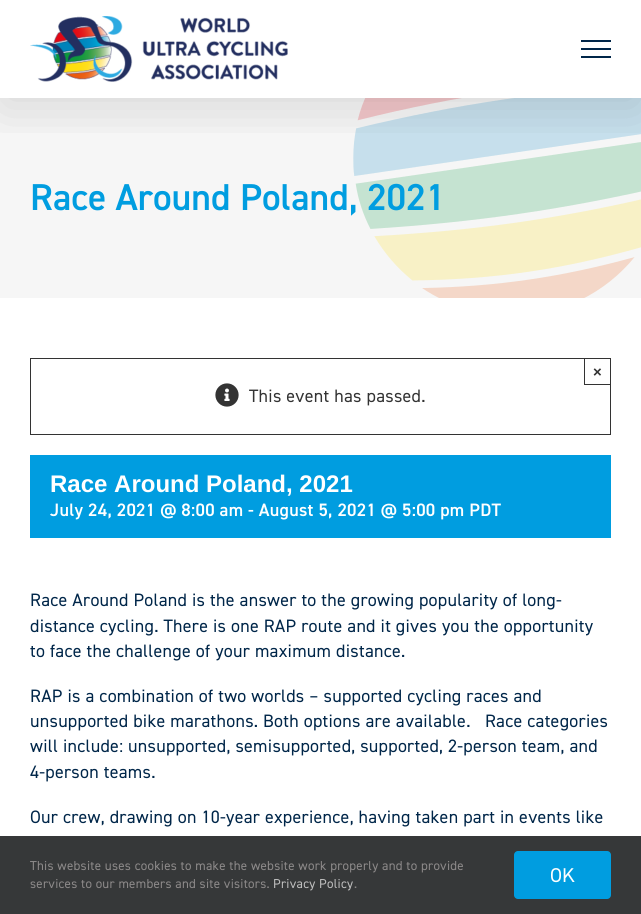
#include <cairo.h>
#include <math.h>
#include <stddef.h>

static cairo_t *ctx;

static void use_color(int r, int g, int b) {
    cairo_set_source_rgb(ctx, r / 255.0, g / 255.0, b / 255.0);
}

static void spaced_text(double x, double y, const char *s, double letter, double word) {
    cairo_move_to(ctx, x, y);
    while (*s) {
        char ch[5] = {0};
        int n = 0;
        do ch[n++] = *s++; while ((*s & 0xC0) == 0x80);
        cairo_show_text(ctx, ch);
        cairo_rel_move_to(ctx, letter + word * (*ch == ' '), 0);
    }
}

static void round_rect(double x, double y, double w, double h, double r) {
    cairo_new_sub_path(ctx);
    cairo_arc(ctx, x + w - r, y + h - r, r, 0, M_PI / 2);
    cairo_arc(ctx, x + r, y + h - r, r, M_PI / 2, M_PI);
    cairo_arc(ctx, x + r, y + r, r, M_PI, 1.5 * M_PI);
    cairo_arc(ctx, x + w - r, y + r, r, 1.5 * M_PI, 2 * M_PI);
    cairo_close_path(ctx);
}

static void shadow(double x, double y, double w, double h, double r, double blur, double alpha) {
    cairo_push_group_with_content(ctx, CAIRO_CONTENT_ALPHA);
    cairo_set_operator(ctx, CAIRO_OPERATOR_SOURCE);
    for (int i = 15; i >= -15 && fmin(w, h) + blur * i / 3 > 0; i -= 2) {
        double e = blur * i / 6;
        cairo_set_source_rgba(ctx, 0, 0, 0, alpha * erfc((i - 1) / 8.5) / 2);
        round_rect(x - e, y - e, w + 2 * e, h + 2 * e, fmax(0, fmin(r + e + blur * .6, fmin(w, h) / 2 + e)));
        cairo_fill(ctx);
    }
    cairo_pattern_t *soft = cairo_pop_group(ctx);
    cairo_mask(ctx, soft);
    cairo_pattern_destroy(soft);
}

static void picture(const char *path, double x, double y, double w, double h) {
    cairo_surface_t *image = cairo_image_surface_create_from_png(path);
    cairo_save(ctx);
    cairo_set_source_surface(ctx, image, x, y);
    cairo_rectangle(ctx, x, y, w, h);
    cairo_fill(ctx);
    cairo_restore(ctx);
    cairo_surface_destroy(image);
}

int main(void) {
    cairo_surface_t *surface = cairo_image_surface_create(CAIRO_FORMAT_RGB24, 641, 914);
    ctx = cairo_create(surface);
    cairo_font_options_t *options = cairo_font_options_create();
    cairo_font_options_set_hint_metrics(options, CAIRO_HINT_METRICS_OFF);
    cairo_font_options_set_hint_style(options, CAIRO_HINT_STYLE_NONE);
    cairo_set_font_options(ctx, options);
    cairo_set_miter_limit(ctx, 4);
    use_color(255, 255, 255);
    cairo_paint(ctx);
    use_color(246, 246, 246);
    cairo_rectangle(ctx, 0, 98, 641, 200);
    cairo_fill(ctx);
    picture("img2.png", 353, 98, 288, 200);
    cairo_save(ctx);
    cairo_rectangle(ctx, 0, 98, 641, 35);
    cairo_clip(ctx);
    use_color(0, 0, 0);
    shadow(2, 12, 637, 94, 0, 25, 0.14);
    cairo_restore(ctx);
    picture("img1.png", 30, 16, 258, 66);
    use_color(0, 38, 73);
    cairo_rectangle(ctx, 581, 40, 30, 2);
    cairo_fill(ctx);
    cairo_rectangle(ctx, 581, 48, 30, 2);
    cairo_fill(ctx);
    cairo_rectangle(ctx, 581, 56, 30, 2);
    cairo_fill(ctx);
    cairo_select_font_face(ctx, "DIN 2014 SemiBold", CAIRO_FONT_SLANT_NORMAL, CAIRO_FONT_WEIGHT_NORMAL);
    cairo_set_font_size(ctx, 37.5);
    use_color(0, 157, 224);
    cairo_move_to(ctx, 30, 210);
    cairo_show_text(ctx, "Race Around Poland, 2021");
    cairo_rectangle(ctx, 30.5, 358.5, 580, 76);
    use_color(51, 51, 51);
    cairo_set_line_width(ctx, 1);
    cairo_stroke(ctx);
    cairo_rectangle(ctx, 584.5, 358.5, 26, 26);
    cairo_stroke(ctx);
    cairo_select_font_face(ctx, "Liberation Sans", CAIRO_FONT_SLANT_NORMAL, CAIRO_FONT_WEIGHT_BOLD);
    cairo_set_font_size(ctx, 15);
    cairo_move_to(ctx, 593, 377);
    cairo_show_text(ctx, "×");
    picture("img3.png", 215, 383, 24, 24);
    cairo_select_font_face(ctx, "DIN 2014", CAIRO_FONT_SLANT_NORMAL, CAIRO_FONT_WEIGHT_NORMAL);
    cairo_set_font_size(ctx, 18);
    spaced_text(249, 402, "This event has passed.", 0.27, 0);
    use_color(0, 157, 224);
    cairo_rectangle(ctx, 30, 455, 581, 83);
    cairo_fill(ctx);
    cairo_select_font_face(ctx, "Liberation Sans", CAIRO_FONT_SLANT_NORMAL, CAIRO_FONT_WEIGHT_BOLD);
    cairo_set_font_size(ctx, 24);
    use_color(255, 255, 255);
    cairo_move_to(ctx, 50, 492);
    cairo_show_text(ctx, "Race Around Poland, 2021");
    cairo_select_font_face(ctx, "DIN 2014 SemiBold", CAIRO_FONT_SLANT_NORMAL, CAIRO_FONT_WEIGHT_NORMAL);
    cairo_set_font_size(ctx, 18);
    spaced_text(50, 516, "July 24, 2021 @ 8:00 am - August 5, 2021 @ 5:00 pm PDT", 0.27, 0);
    cairo_select_font_face(ctx, "DIN 2014", CAIRO_FONT_SLANT_NORMAL, CAIRO_FONT_WEIGHT_NORMAL);
    use_color(0, 38, 73);
    spaced_text(30, 606, "Race Around Poland is the answer to the growing popularity of long-", 0.27, 0);
    spaced_text(30, 632, "distance cycling. There is one RAP route and it gives you the opportunity", 0.27, 0);
    spaced_text(30, 657, "to face the challenge of your maximum distance.", 0.27, 0);
    spaced_text(30, 702, "RAP is a combination of two worlds – supported cycling races and", 0.27, 0);
    spaced_text(30, 727, "unsupported bike marathons. Both options are available.   Race categories", 0.27, 0);
    spaced_text(30, 752, "will include: unsupported, semisupported, supported, 2-person team, and", 0.27, 0);
    spaced_text(30, 778, "4-person teams.", 0.27, 0);
    spaced_text(30, 823, "Our crew, drawing on 10-year experience, having taken part in events like", 0.27, 0);
    use_color(54, 56, 57);
    cairo_rectangle(ctx, 0, 836, 641, 78);
    cairo_fill(ctx);
    cairo_set_font_size(ctx, 13);
    use_color(140, 137, 137);
    spaced_text(30, 870, "This website uses cookies to make the website work properly and to provide", 0.27, 0);
    spaced_text(30, 888, "services to our members and site visitors.", 0.27, 0);
    use_color(191, 191, 191);
    spaced_text(273, 888, "Privacy Policy", 0.27, 0);
    use_color(140, 137, 137);
    spaced_text(354, 888, ".", 0.27, 0);
    use_color(0, 157, 224);
    round_rect(514, 851, 97, 48, 4);
    cairo_fill(ctx);
    cairo_set_font_size(ctx, 20);
    use_color(255, 255, 255);
    cairo_move_to(ctx, 550, 882);
    cairo_show_text(ctx, "OK");
    cairo_surface_write_to_png(surface, "result.png");
    cairo_font_options_destroy(options);
    cairo_destroy(ctx);
    cairo_surface_destroy(surface);
    return 0;
}
